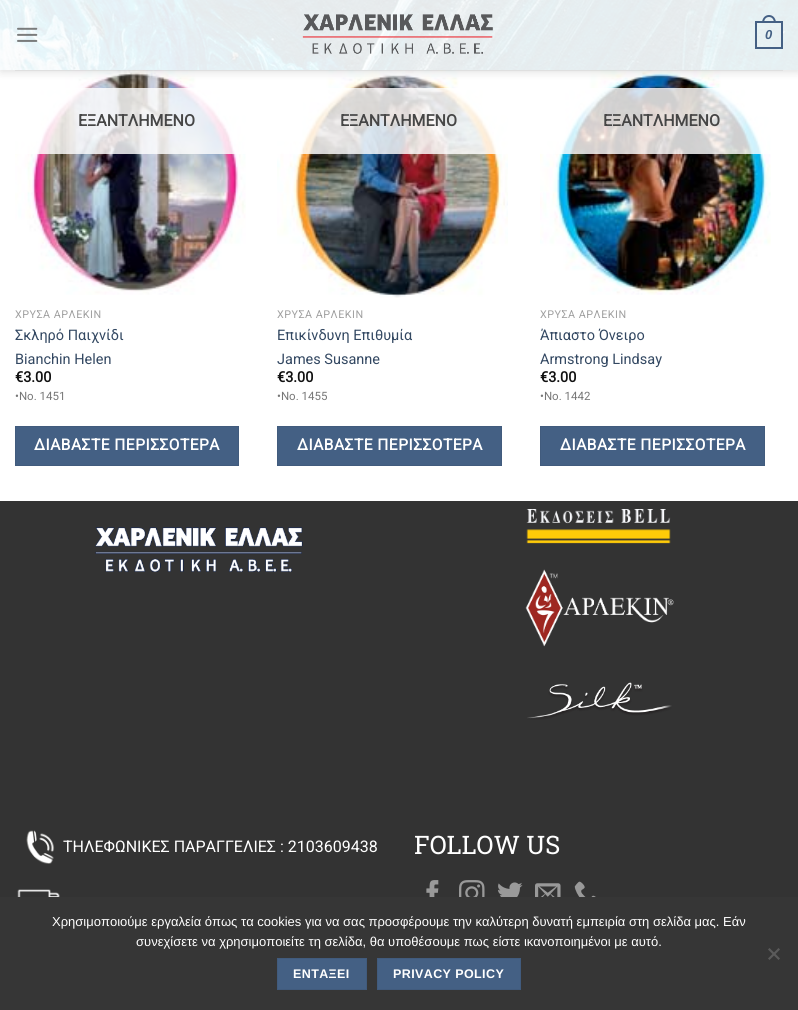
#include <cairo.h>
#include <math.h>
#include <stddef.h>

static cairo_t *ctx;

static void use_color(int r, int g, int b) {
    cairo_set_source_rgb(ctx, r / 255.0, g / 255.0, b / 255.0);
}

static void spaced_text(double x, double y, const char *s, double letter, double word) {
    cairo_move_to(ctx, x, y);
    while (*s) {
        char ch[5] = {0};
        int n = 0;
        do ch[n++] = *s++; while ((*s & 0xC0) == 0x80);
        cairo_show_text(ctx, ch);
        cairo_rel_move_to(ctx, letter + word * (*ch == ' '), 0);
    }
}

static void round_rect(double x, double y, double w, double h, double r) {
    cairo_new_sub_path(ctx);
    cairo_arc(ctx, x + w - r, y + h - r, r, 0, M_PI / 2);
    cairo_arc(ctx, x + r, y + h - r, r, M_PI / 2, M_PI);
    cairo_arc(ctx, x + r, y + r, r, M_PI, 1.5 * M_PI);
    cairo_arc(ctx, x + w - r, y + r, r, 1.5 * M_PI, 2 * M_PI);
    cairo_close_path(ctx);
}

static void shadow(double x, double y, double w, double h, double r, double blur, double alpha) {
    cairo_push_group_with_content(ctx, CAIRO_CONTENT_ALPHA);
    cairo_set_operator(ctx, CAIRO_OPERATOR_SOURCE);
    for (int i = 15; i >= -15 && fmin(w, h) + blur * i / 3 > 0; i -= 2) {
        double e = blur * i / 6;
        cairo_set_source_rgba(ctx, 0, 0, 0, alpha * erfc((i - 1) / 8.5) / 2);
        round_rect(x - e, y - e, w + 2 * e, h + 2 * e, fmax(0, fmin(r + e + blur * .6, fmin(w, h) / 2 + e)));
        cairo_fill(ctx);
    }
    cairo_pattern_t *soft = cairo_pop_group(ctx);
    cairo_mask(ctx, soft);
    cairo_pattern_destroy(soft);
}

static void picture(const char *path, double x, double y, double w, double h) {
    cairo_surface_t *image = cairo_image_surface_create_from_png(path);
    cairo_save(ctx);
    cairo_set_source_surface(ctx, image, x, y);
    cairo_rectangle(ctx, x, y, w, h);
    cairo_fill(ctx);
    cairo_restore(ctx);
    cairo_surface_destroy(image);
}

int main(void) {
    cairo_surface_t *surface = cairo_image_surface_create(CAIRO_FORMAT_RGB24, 798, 1010);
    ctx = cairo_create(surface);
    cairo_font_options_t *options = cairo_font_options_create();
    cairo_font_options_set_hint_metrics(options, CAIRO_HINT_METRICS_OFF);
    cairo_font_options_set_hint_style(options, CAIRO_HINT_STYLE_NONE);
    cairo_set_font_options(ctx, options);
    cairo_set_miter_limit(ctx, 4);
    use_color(255, 255, 255);
    cairo_paint(ctx);
    picture("img4.png", 15, 70, 231, 225);
    picture("img5.png", 277, 70, 231, 228);
    picture("img6.png", 540, 70, 231, 225);
    use_color(0, 0, 0);
    shadow(1, 1, 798, 70, 0, 5, 0.15);
    picture("img1.png", 0, 0, 798, 70);
    picture("img2.png", 17, 27, 21, 15);
    picture("img3.png", 302, 14, 191, 40);
    cairo_rectangle(ctx, 756, 22, 26, 26);
    use_color(68, 96, 132);
    cairo_stroke(ctx);
    cairo_set_fill_rule(ctx, CAIRO_FILL_RULE_EVEN_ODD);
    cairo_new_path(ctx);
    cairo_move_to(ctx, 769, 15);
    cairo_curve_to(ctx, 773.5, 15, 776, 19, 776, 23);
    cairo_line_to(ctx, 762, 23);
    cairo_curve_to(ctx, 762, 19, 764.5, 15, 769, 15);
    cairo_close_path(ctx);
    cairo_move_to(ctx, 769, 17);
    cairo_curve_to(ctx, 772.5, 17, 774, 20, 774, 23);
    cairo_line_to(ctx, 764, 23);
    cairo_curve_to(ctx, 764, 20, 765.5, 17, 769, 17);
    cairo_close_path(ctx);
    cairo_fill(ctx);
    cairo_select_font_face(ctx, "Liberation Sans", CAIRO_FONT_SLANT_ITALIC, CAIRO_FONT_WEIGHT_BOLD);
    cairo_set_font_size(ctx, 13);
    cairo_move_to(ctx, 765, 39);
    cairo_show_text(ctx, "0");
    cairo_set_source_rgba(ctx, 0.467, 0.467, 0.467, 0.1);
    cairo_rectangle(ctx, 15, 70, 768, 1);
    cairo_fill(ctx);
    cairo_set_source_rgba(ctx, 1, 1, 1, 0.81);
    cairo_rectangle(ctx, 15, 88, 231, 66);
    cairo_fill(ctx);
    cairo_select_font_face(ctx, "Roboto", CAIRO_FONT_SLANT_NORMAL, CAIRO_FONT_WEIGHT_BOLD);
    cairo_set_font_size(ctx, 16);
    use_color(70, 70, 70);
    cairo_move_to(ctx, 78, 126);
    cairo_show_text(ctx, "ΕΞΑΝΤΛΗΜΕΝΟ");
    cairo_select_font_face(ctx, "Roboto", CAIRO_FONT_SLANT_NORMAL, CAIRO_FONT_WEIGHT_NORMAL);
    cairo_set_font_size(ctx, 10.75);
    use_color(160, 160, 160);
    spaced_text(15, 318, "ΧΡΥΣΑ ΑΡΛΕΚΙΝ", 0.5, 0);
    cairo_set_font_size(ctx, 14.5);
    use_color(51, 72, 98);
    cairo_move_to(ctx, 15, 340);
    cairo_show_text(ctx, "Σκληρό Παιχνίδι");
    cairo_move_to(ctx, 15, 364);
    cairo_show_text(ctx, "Bianchin Helen");
    cairo_select_font_face(ctx, "Roboto", CAIRO_FONT_SLANT_NORMAL, CAIRO_FONT_WEIGHT_BOLD);
    use_color(17, 17, 17);
    cairo_move_to(ctx, 15, 382);
    cairo_show_text(ctx, "€3.00");
    cairo_select_font_face(ctx, "Roboto", CAIRO_FONT_SLANT_NORMAL, CAIRO_FONT_WEIGHT_NORMAL);
    cairo_set_font_size(ctx, 11.5);
    use_color(119, 119, 119);
    cairo_move_to(ctx, 15, 400);
    cairo_show_text(ctx, "•Νο. 1451");
    use_color(68, 96, 132);
    cairo_rectangle(ctx, 15.5, 426.5, 223, 39);
    cairo_fill_preserve(ctx);
    use_color(65, 91, 125);
    cairo_set_line_width(ctx, 1);
    cairo_stroke(ctx);
    cairo_select_font_face(ctx, "Roboto", CAIRO_FONT_SLANT_NORMAL, CAIRO_FONT_WEIGHT_BOLD);
    cairo_set_font_size(ctx, 15.5);
    use_color(255, 255, 255);
    spaced_text(34, 450, "ΔΙΑΒΑΣΤΕ ΠΕΡΙΣΣΟΤΕΡΑ", 0.5, 0);
    cairo_set_source_rgba(ctx, 1, 1, 1, 0.81);
    cairo_rectangle(ctx, 277, 88, 231, 66);
    cairo_fill(ctx);
    cairo_set_font_size(ctx, 16);
    use_color(70, 70, 70);
    cairo_move_to(ctx, 340, 126);
    cairo_show_text(ctx, "ΕΞΑΝΤΛΗΜΕΝΟ");
    cairo_select_font_face(ctx, "Roboto", CAIRO_FONT_SLANT_NORMAL, CAIRO_FONT_WEIGHT_NORMAL);
    cairo_set_font_size(ctx, 10.75);
    use_color(160, 160, 160);
    spaced_text(277, 318, "ΧΡΥΣΑ ΑΡΛΕΚΙΝ", 0.5, 0);
    cairo_set_font_size(ctx, 14.5);
    use_color(51, 72, 98);
    cairo_move_to(ctx, 277, 340);
    cairo_show_text(ctx, "Επικίνδυνη Επιθυμία");
    cairo_move_to(ctx, 277, 364);
    cairo_show_text(ctx, "James Susanne");
    cairo_select_font_face(ctx, "Roboto", CAIRO_FONT_SLANT_NORMAL, CAIRO_FONT_WEIGHT_BOLD);
    use_color(17, 17, 17);
    cairo_move_to(ctx, 277, 382);
    cairo_show_text(ctx, "€3.00");
    cairo_select_font_face(ctx, "Roboto", CAIRO_FONT_SLANT_NORMAL, CAIRO_FONT_WEIGHT_NORMAL);
    cairo_set_font_size(ctx, 11.5);
    use_color(119, 119, 119);
    cairo_move_to(ctx, 277, 400);
    cairo_show_text(ctx, "•Νο. 1455");
    use_color(68, 96, 132);
    cairo_rectangle(ctx, 277.5, 426.5, 224, 39);
    cairo_fill_preserve(ctx);
    use_color(65, 91, 125);
    cairo_stroke(ctx);
    cairo_select_font_face(ctx, "Roboto", CAIRO_FONT_SLANT_NORMAL, CAIRO_FONT_WEIGHT_BOLD);
    cairo_set_font_size(ctx, 15.5);
    use_color(255, 255, 255);
    spaced_text(297, 450, "ΔΙΑΒΑΣΤΕ ΠΕΡΙΣΣΟΤΕΡΑ", 0.5, 0);
    cairo_set_source_rgba(ctx, 1, 1, 1, 0.81);
    cairo_rectangle(ctx, 540, 88, 231, 66);
    cairo_fill(ctx);
    cairo_set_font_size(ctx, 16);
    use_color(70, 70, 70);
    cairo_move_to(ctx, 603, 126);
    cairo_show_text(ctx, "ΕΞΑΝΤΛΗΜΕΝΟ");
    cairo_select_font_face(ctx, "Roboto", CAIRO_FONT_SLANT_NORMAL, CAIRO_FONT_WEIGHT_NORMAL);
    cairo_set_font_size(ctx, 10.75);
    use_color(160, 160, 160);
    spaced_text(540, 318, "ΧΡΥΣΑ ΑΡΛΕΚΙΝ", 0.5, 0);
    cairo_set_font_size(ctx, 14.5);
    use_color(51, 72, 98);
    cairo_move_to(ctx, 540, 340);
    cairo_show_text(ctx, "Άπιαστο Όνειρο");
    cairo_move_to(ctx, 540, 364);
    cairo_show_text(ctx, "Armstrong Lindsay");
    cairo_select_font_face(ctx, "Roboto", CAIRO_FONT_SLANT_NORMAL, CAIRO_FONT_WEIGHT_BOLD);
    use_color(17, 17, 17);
    cairo_move_to(ctx, 540, 382);
    cairo_show_text(ctx, "€3.00");
    cairo_select_font_face(ctx, "Roboto", CAIRO_FONT_SLANT_NORMAL, CAIRO_FONT_WEIGHT_NORMAL);
    cairo_set_font_size(ctx, 11.5);
    use_color(119, 119, 119);
    cairo_move_to(ctx, 540, 400);
    cairo_show_text(ctx, "•Νο. 1442");
    use_color(68, 96, 132);
    cairo_rectangle(ctx, 540.5, 426.5, 224, 39);
    cairo_fill_preserve(ctx);
    use_color(65, 91, 125);
    cairo_stroke(ctx);
    cairo_select_font_face(ctx, "Roboto", CAIRO_FONT_SLANT_NORMAL, CAIRO_FONT_WEIGHT_BOLD);
    cairo_set_font_size(ctx, 15.5);
    use_color(255, 255, 255);
    spaced_text(560, 450, "ΔΙΑΒΑΣΤΕ ΠΕΡΙΣΣΟΤΕΡΑ", 0.5, 0);
    use_color(51, 51, 51);
    cairo_rectangle(ctx, 0, 501, 798, 396);
    cairo_fill(ctx);
    picture("img7.png", 95, 527, 208, 45);
    picture("img8.png", 526, 509, 145, 35);
    picture("img9.png", 525, 569, 149, 78);
    picture("img10.png", 527, 682, 145, 38);
    picture("img11.png", 26, 830, 29, 34);
    cairo_select_font_face(ctx, "Roboto", CAIRO_FONT_SLANT_NORMAL, CAIRO_FONT_WEIGHT_NORMAL);
    cairo_set_font_size(ctx, 16);
    use_color(255, 255, 255);
    cairo_move_to(ctx, 63, 852);
    cairo_show_text(ctx, "ΤΗΛΕΦΩΝΙΚΕΣ ΠΑΡΑΓΓΕΛΙΕΣ : 2103609438");
    picture("img12.png", 17, 889, 43, 8);
    cairo_select_font_face(ctx, "Roboto Slab", CAIRO_FONT_SLANT_NORMAL, CAIRO_FONT_WEIGHT_NORMAL);
    cairo_set_font_size(ctx, 25.5);
    cairo_move_to(ctx, 414, 854);
    cairo_show_text(ctx, "FOLLOW US");
    picture("img13.png", 426, 880, 13, 17);
    picture("img14.png", 459, 880, 26, 17);
    picture("img15.png", 498, 882, 25, 15);
    picture("img16.png", 535, 883, 26, 14);
    picture("img17.png", 574, 881, 22, 16);
    use_color(54, 54, 54);
    cairo_rectangle(ctx, 0, 897, 798, 113);
    cairo_fill(ctx);
    cairo_select_font_face(ctx, "Liberation Sans", CAIRO_FONT_SLANT_NORMAL, CAIRO_FONT_WEIGHT_NORMAL);
    cairo_set_font_size(ctx, 13);
    use_color(255, 255, 255);
    cairo_move_to(ctx, 52, 926);
    cairo_show_text(ctx, "Χρησιμοποιούμε εργαλεία όπως τα cookies για να σας προσφέρουμε την καλύτερη δυνατή εμπειρία στη σελίδα μας. Εάν");
    cairo_move_to(ctx, 136, 946);
    cairo_show_text(ctx, "συνεχίσετε να χρησιμοποιείτε τη σελίδα, θα υποθέσουμε πως είστε ικανοποιημένοι με αυτό.");
    use_color(91, 91, 91);
    cairo_set_fill_rule(ctx, CAIRO_FILL_RULE_WINDING);
    cairo_new_path(ctx);
    cairo_move_to(ctx, 778.5, 948);
    cairo_line_to(ctx, 780, 949.5);
    cairo_line_to(ctx, 769.5, 960);
    cairo_line_to(ctx, 768, 958.5);
    cairo_close_path(ctx);
    cairo_fill(ctx);
    cairo_new_path(ctx);
    cairo_move_to(ctx, 768, 949.5);
    cairo_line_to(ctx, 769.5, 948);
    cairo_line_to(ctx, 780, 958.5);
    cairo_line_to(ctx, 778.5, 960);
    cairo_close_path(ctx);
    cairo_fill(ctx);
    use_color(68, 96, 132);
    cairo_rectangle(ctx, 277.5, 958.5, 89, 31);
    cairo_fill_preserve(ctx);
    use_color(65, 91, 125);
    cairo_stroke(ctx);
    cairo_select_font_face(ctx, "Liberation Sans", CAIRO_FONT_SLANT_NORMAL, CAIRO_FONT_WEIGHT_BOLD);
    cairo_set_font_size(ctx, 12.5);
    use_color(255, 255, 255);
    spaced_text(293, 978, "ΕΝΤΑΞΕΙ", 0.4, 0);
    use_color(68, 96, 132);
    cairo_rectangle(ctx, 377.5, 958.5, 143, 31);
    cairo_fill_preserve(ctx);
    use_color(65, 91, 125);
    cairo_stroke(ctx);
    use_color(255, 255, 255);
    spaced_text(393, 978, "PRIVACY POLICY", 0.4, 0);
    cairo_surface_write_to_png(surface, "result.png");
    cairo_font_options_destroy(options);
    cairo_destroy(ctx);
    cairo_surface_destroy(surface);
    return 0;
}
